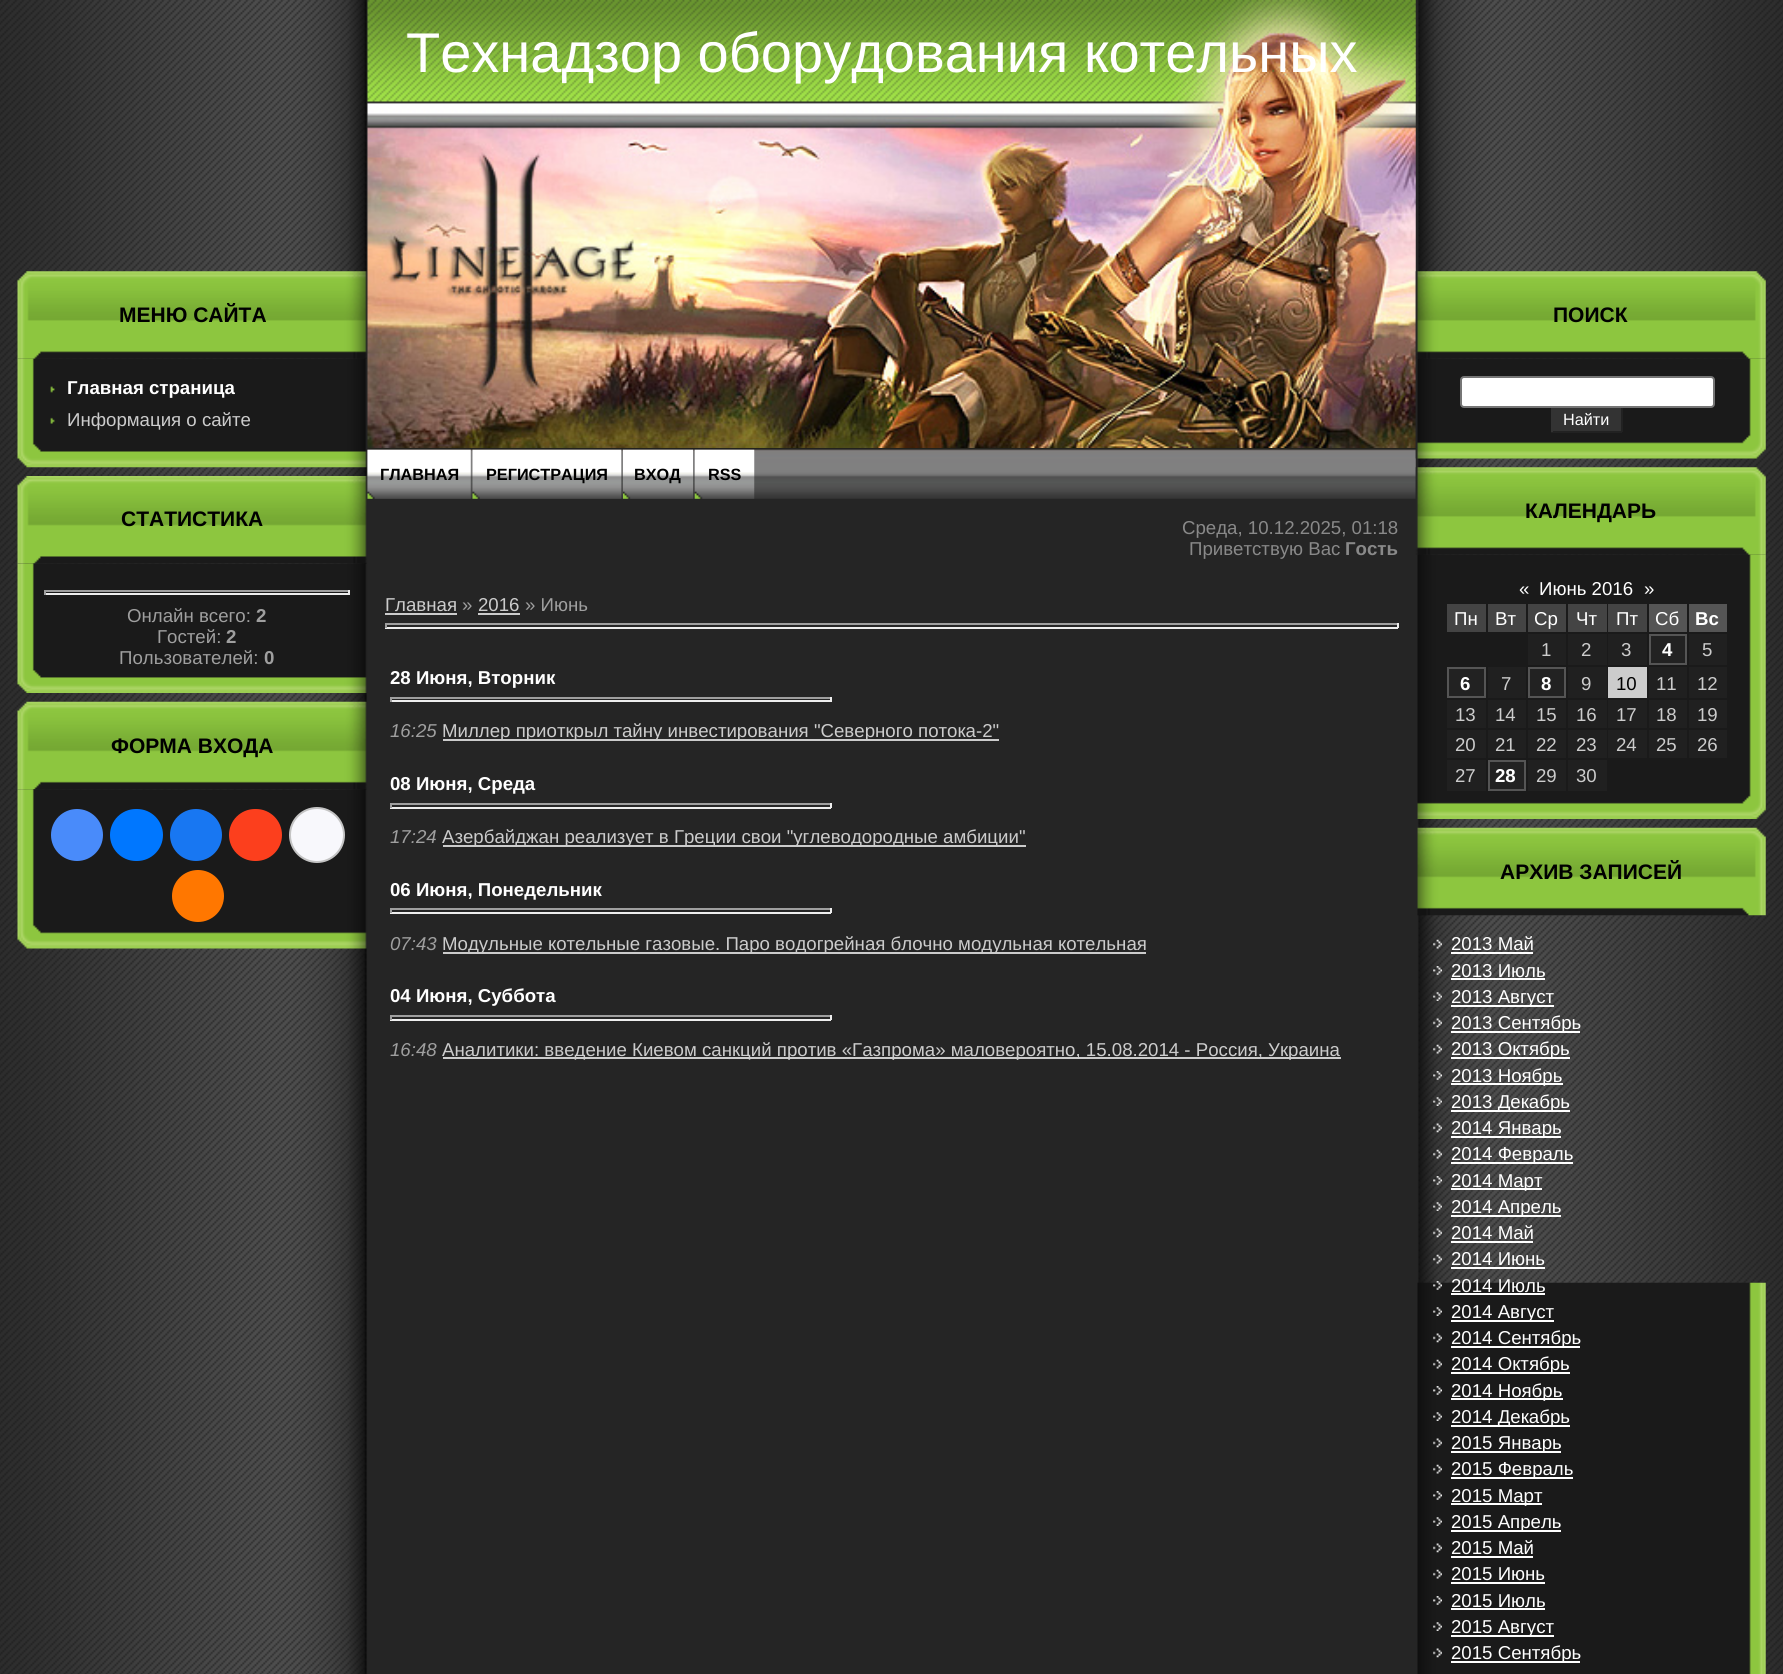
#include <cairo.h>
#include <math.h>
#include <stddef.h>

static cairo_t *ctx;

static void use_color(int r, int g, int b) {
    cairo_set_source_rgb(ctx, r / 255.0, g / 255.0, b / 255.0);
}

static void round_rect(double x, double y, double w, double h, double r) {
    cairo_new_sub_path(ctx);
    cairo_arc(ctx, x + w - r, y + h - r, r, 0, M_PI / 2);
    cairo_arc(ctx, x + r, y + h - r, r, M_PI / 2, M_PI);
    cairo_arc(ctx, x + r, y + r, r, M_PI, 1.5 * M_PI);
    cairo_arc(ctx, x + w - r, y + r, r, 1.5 * M_PI, 2 * M_PI);
    cairo_close_path(ctx);
}

static void picture(const char *path, double x, double y, double w, double h) {
    cairo_surface_t *image = cairo_image_surface_create_from_png(path);
    cairo_save(ctx);
    cairo_set_source_surface(ctx, image, x, y);
    cairo_rectangle(ctx, x, y, w, h);
    cairo_fill(ctx);
    cairo_restore(ctx);
    cairo_surface_destroy(image);
}

int main(void) {
    cairo_surface_t *surface = cairo_image_surface_create(CAIRO_FORMAT_RGB24, 1783, 1674);
    ctx = cairo_create(surface);
    cairo_font_options_t *options = cairo_font_options_create();
    cairo_font_options_set_hint_metrics(options, CAIRO_HINT_METRICS_OFF);
    cairo_font_options_set_hint_style(options, CAIRO_HINT_STYLE_NONE);
    cairo_set_font_options(ctx, options);
    cairo_set_miter_limit(ctx, 4);
    use_color(255, 255, 255);
    cairo_paint(ctx);
    picture("img1.png", 0, 0, 1783, 1674);
    picture("img2.png", 17, 271, 350, 88);
    cairo_select_font_face(ctx, "Liberation Sans", CAIRO_FONT_SLANT_NORMAL, CAIRO_FONT_WEIGHT_BOLD);
    cairo_set_font_size(ctx, 21);
    use_color(0, 0, 0);
    cairo_move_to(ctx, 119, 322);
    cairo_show_text(ctx, "МЕНЮ САЙТА");
    picture("img3.png", 17, 358, 350, 110);
    picture("img4.png", 50, 386, 5, 7);
    cairo_set_font_size(ctx, 18.65);
    use_color(255, 255, 255);
    cairo_move_to(ctx, 67, 394);
    cairo_show_text(ctx, "Главная страница");
    picture("img5.png", 50, 417, 5, 7);
    cairo_select_font_face(ctx, "Liberation Sans", CAIRO_FONT_SLANT_NORMAL, CAIRO_FONT_WEIGHT_NORMAL);
    use_color(204, 204, 204);
    cairo_move_to(ctx, 67, 426);
    cairo_show_text(ctx, "Информация о сайте");
    picture("img6.png", 17, 476, 350, 88);
    cairo_select_font_face(ctx, "Liberation Sans", CAIRO_FONT_SLANT_NORMAL, CAIRO_FONT_WEIGHT_BOLD);
    cairo_set_font_size(ctx, 21);
    use_color(0, 0, 0);
    cairo_move_to(ctx, 121, 526);
    cairo_show_text(ctx, "СТАТИСТИКА");
    picture("img7.png", 17, 563, 350, 130);
    use_color(159, 159, 159);
    cairo_rectangle(ctx, 44, 590, 306, 2);
    cairo_fill(ctx);
    use_color(238, 238, 238);
    cairo_rectangle(ctx, 348, 590, 2, 5);
    cairo_fill(ctx);
    cairo_rectangle(ctx, 44, 593, 306, 2);
    cairo_fill(ctx);
    use_color(159, 159, 159);
    cairo_rectangle(ctx, 44, 590, 2, 5);
    cairo_fill(ctx);
    cairo_select_font_face(ctx, "Liberation Sans", CAIRO_FONT_SLANT_NORMAL, CAIRO_FONT_WEIGHT_NORMAL);
    cairo_set_font_size(ctx, 18.65);
    cairo_move_to(ctx, 127, 622);
    cairo_show_text(ctx, "Онлайн всего:");
    cairo_select_font_face(ctx, "Liberation Sans", CAIRO_FONT_SLANT_NORMAL, CAIRO_FONT_WEIGHT_BOLD);
    cairo_move_to(ctx, 256, 622);
    cairo_show_text(ctx, "2");
    cairo_select_font_face(ctx, "Liberation Sans", CAIRO_FONT_SLANT_NORMAL, CAIRO_FONT_WEIGHT_NORMAL);
    cairo_move_to(ctx, 157, 643);
    cairo_show_text(ctx, "Гостей:");
    cairo_select_font_face(ctx, "Liberation Sans", CAIRO_FONT_SLANT_NORMAL, CAIRO_FONT_WEIGHT_BOLD);
    cairo_move_to(ctx, 226, 643);
    cairo_show_text(ctx, "2");
    cairo_select_font_face(ctx, "Liberation Sans", CAIRO_FONT_SLANT_NORMAL, CAIRO_FONT_WEIGHT_NORMAL);
    cairo_move_to(ctx, 119, 664);
    cairo_show_text(ctx, "Пользователей:");
    cairo_select_font_face(ctx, "Liberation Sans", CAIRO_FONT_SLANT_NORMAL, CAIRO_FONT_WEIGHT_BOLD);
    cairo_move_to(ctx, 264, 664);
    cairo_show_text(ctx, "0");
    picture("img8.png", 17, 701, 350, 89);
    cairo_set_font_size(ctx, 21);
    use_color(0, 0, 0);
    cairo_move_to(ctx, 111, 753);
    cairo_show_text(ctx, "ФОРМА ВХОДА");
    picture("img9.png", 17, 789, 350, 160);
    use_color(73, 139, 250);
    cairo_arc(ctx, 77, 835, 26, 0, 2 * M_PI);
    cairo_fill(ctx);
    use_color(0, 119, 255);
    round_rect(110, 809, 53, 52, 26);
    cairo_fill(ctx);
    use_color(24, 119, 242);
    cairo_arc(ctx, 196, 835, 26, 0, 2 * M_PI);
    cairo_fill(ctx);
    use_color(252, 63, 29);
    round_rect(229, 809, 53, 52, 26);
    cairo_fill(ctx);
    use_color(248, 248, 252);
    cairo_arc(ctx, 317, 835, 27, 0, 2 * M_PI);
    cairo_fill_preserve(ctx);
    use_color(196, 196, 196);
    cairo_stroke(ctx);
    use_color(255, 119, 0);
    cairo_arc(ctx, 198, 896, 26, 0, 2 * M_PI);
    cairo_fill(ctx);
    picture("img10.png", 367, 0, 1049, 448);
    cairo_select_font_face(ctx, "Liberation Sans", CAIRO_FONT_SLANT_NORMAL, CAIRO_FONT_WEIGHT_NORMAL);
    cairo_set_font_size(ctx, 56);
    use_color(255, 255, 255);
    cairo_move_to(ctx, 406, 72);
    cairo_show_text(ctx, "Технадзор оборудования котельных");
    picture("img11.png", 367, 448, 1049, 51);
    picture("img12.png", 367, 449, 104, 50);
    cairo_select_font_face(ctx, "Liberation Sans", CAIRO_FONT_SLANT_NORMAL, CAIRO_FONT_WEIGHT_BOLD);
    cairo_set_font_size(ctx, 16.25);
    use_color(0, 0, 0);
    cairo_move_to(ctx, 380, 480);
    cairo_show_text(ctx, "ГЛАВНАЯ");
    picture("img13.png", 472, 449, 150, 50);
    cairo_move_to(ctx, 486, 480);
    cairo_show_text(ctx, "РЕГИСТРАЦИЯ");
    picture("img14.png", 623, 449, 70, 50);
    cairo_move_to(ctx, 634, 480);
    cairo_show_text(ctx, "ВХОД");
    picture("img15.png", 694, 449, 61, 50);
    cairo_move_to(ctx, 708, 480);
    cairo_show_text(ctx, "RSS");
    cairo_select_font_face(ctx, "Liberation Sans", CAIRO_FONT_SLANT_NORMAL, CAIRO_FONT_WEIGHT_NORMAL);
    cairo_set_font_size(ctx, 18.65);
    use_color(137, 137, 137);
    cairo_move_to(ctx, 1182, 534);
    cairo_show_text(ctx, "Среда, 10.12.2025, 01:18");
    cairo_move_to(ctx, 1189, 555);
    cairo_show_text(ctx, "Приветствую Вас");
    cairo_select_font_face(ctx, "Liberation Sans", CAIRO_FONT_SLANT_NORMAL, CAIRO_FONT_WEIGHT_BOLD);
    cairo_move_to(ctx, 1345, 555);
    cairo_show_text(ctx, "Гость");
    cairo_select_font_face(ctx, "Liberation Sans", CAIRO_FONT_SLANT_NORMAL, CAIRO_FONT_WEIGHT_NORMAL);
    use_color(204, 204, 204);
    cairo_move_to(ctx, 385, 611);
    cairo_show_text(ctx, "Главная");
    cairo_rectangle(ctx, 385, 613, 72, 2);
    cairo_fill(ctx);
    use_color(159, 159, 159);
    cairo_move_to(ctx, 462, 611);
    cairo_show_text(ctx, "»");
    use_color(204, 204, 204);
    cairo_move_to(ctx, 478, 611);
    cairo_show_text(ctx, "2016");
    cairo_rectangle(ctx, 478, 613, 42, 2);
    cairo_fill(ctx);
    use_color(159, 159, 159);
    cairo_move_to(ctx, 525, 611);
    cairo_show_text(ctx, "» Июнь");
    cairo_rectangle(ctx, 385, 623, 1013, 2);
    cairo_fill(ctx);
    use_color(238, 238, 238);
    cairo_rectangle(ctx, 1397, 623, 2, 5);
    cairo_fill(ctx);
    cairo_rectangle(ctx, 385, 627, 1013, 2);
    cairo_fill(ctx);
    use_color(159, 159, 159);
    cairo_rectangle(ctx, 385, 623, 2, 5);
    cairo_fill(ctx);
    cairo_select_font_face(ctx, "Liberation Sans", CAIRO_FONT_SLANT_NORMAL, CAIRO_FONT_WEIGHT_BOLD);
    use_color(255, 255, 255);
    cairo_move_to(ctx, 390, 684);
    cairo_show_text(ctx, "28 Июня, Вторник");
    use_color(159, 159, 159);
    cairo_rectangle(ctx, 390, 697, 441, 2);
    cairo_fill(ctx);
    use_color(238, 238, 238);
    cairo_rectangle(ctx, 830, 697, 2, 5);
    cairo_fill(ctx);
    cairo_rectangle(ctx, 390, 700, 441, 2);
    cairo_fill(ctx);
    use_color(159, 159, 159);
    cairo_rectangle(ctx, 390, 697, 2, 5);
    cairo_fill(ctx);
    cairo_select_font_face(ctx, "Liberation Sans", CAIRO_FONT_SLANT_ITALIC, CAIRO_FONT_WEIGHT_NORMAL);
    cairo_move_to(ctx, 390, 737);
    cairo_show_text(ctx, "16:25");
    use_color(204, 204, 204);
    cairo_rectangle(ctx, 443, 739, 556, 2);
    cairo_fill(ctx);
    cairo_select_font_face(ctx, "Liberation Sans", CAIRO_FONT_SLANT_NORMAL, CAIRO_FONT_WEIGHT_NORMAL);
    cairo_move_to(ctx, 442, 737);
    cairo_show_text(ctx, "Миллер приоткрыл тайну инвестирования \"Северного потока-2\"");
    cairo_select_font_face(ctx, "Liberation Sans", CAIRO_FONT_SLANT_NORMAL, CAIRO_FONT_WEIGHT_BOLD);
    use_color(255, 255, 255);
    cairo_move_to(ctx, 390, 790);
    cairo_show_text(ctx, "08 Июня, Среда");
    use_color(159, 159, 159);
    cairo_rectangle(ctx, 390, 803, 441, 2);
    cairo_fill(ctx);
    use_color(238, 238, 238);
    cairo_rectangle(ctx, 830, 803, 2, 5);
    cairo_fill(ctx);
    cairo_rectangle(ctx, 390, 807, 441, 2);
    cairo_fill(ctx);
    use_color(159, 159, 159);
    cairo_rectangle(ctx, 390, 803, 2, 5);
    cairo_fill(ctx);
    cairo_select_font_face(ctx, "Liberation Sans", CAIRO_FONT_SLANT_ITALIC, CAIRO_FONT_WEIGHT_NORMAL);
    cairo_move_to(ctx, 390, 843);
    cairo_show_text(ctx, "17:24");
    use_color(204, 204, 204);
    cairo_rectangle(ctx, 443, 845, 583, 2);
    cairo_fill(ctx);
    cairo_select_font_face(ctx, "Liberation Sans", CAIRO_FONT_SLANT_NORMAL, CAIRO_FONT_WEIGHT_NORMAL);
    cairo_move_to(ctx, 442, 843);
    cairo_show_text(ctx, "Азербайджан реализует в Греции свои \"углеводородные амбиции\"");
    cairo_select_font_face(ctx, "Liberation Sans", CAIRO_FONT_SLANT_NORMAL, CAIRO_FONT_WEIGHT_BOLD);
    use_color(255, 255, 255);
    cairo_move_to(ctx, 390, 896);
    cairo_show_text(ctx, "06 Июня, Понедельник");
    use_color(159, 159, 159);
    cairo_rectangle(ctx, 390, 908, 441, 2);
    cairo_fill(ctx);
    use_color(238, 238, 238);
    cairo_rectangle(ctx, 830, 908, 2, 5);
    cairo_fill(ctx);
    cairo_rectangle(ctx, 390, 912, 441, 2);
    cairo_fill(ctx);
    use_color(159, 159, 159);
    cairo_rectangle(ctx, 390, 908, 2, 5);
    cairo_fill(ctx);
    cairo_select_font_face(ctx, "Liberation Sans", CAIRO_FONT_SLANT_ITALIC, CAIRO_FONT_WEIGHT_NORMAL);
    cairo_move_to(ctx, 390, 950);
    cairo_show_text(ctx, "07:43");
    use_color(204, 204, 204);
    cairo_rectangle(ctx, 443, 952, 703, 2);
    cairo_fill(ctx);
    cairo_select_font_face(ctx, "Liberation Sans", CAIRO_FONT_SLANT_NORMAL, CAIRO_FONT_WEIGHT_NORMAL);
    cairo_move_to(ctx, 442, 950);
    cairo_show_text(ctx, "Модульные котельные газовые. Паро водогрейная блочно модульная котельная");
    cairo_select_font_face(ctx, "Liberation Sans", CAIRO_FONT_SLANT_NORMAL, CAIRO_FONT_WEIGHT_BOLD);
    use_color(255, 255, 255);
    cairo_move_to(ctx, 390, 1002);
    cairo_show_text(ctx, "04 Июня, Суббота");
    use_color(159, 159, 159);
    cairo_rectangle(ctx, 390, 1015, 441, 2);
    cairo_fill(ctx);
    use_color(238, 238, 238);
    cairo_rectangle(ctx, 830, 1015, 2, 5);
    cairo_fill(ctx);
    cairo_rectangle(ctx, 390, 1019, 441, 2);
    cairo_fill(ctx);
    use_color(159, 159, 159);
    cairo_rectangle(ctx, 390, 1015, 2, 5);
    cairo_fill(ctx);
    cairo_select_font_face(ctx, "Liberation Sans", CAIRO_FONT_SLANT_ITALIC, CAIRO_FONT_WEIGHT_NORMAL);
    cairo_move_to(ctx, 390, 1056);
    cairo_show_text(ctx, "16:48");
    use_color(204, 204, 204);
    cairo_rectangle(ctx, 443, 1057, 898, 2);
    cairo_fill(ctx);
    cairo_select_font_face(ctx, "Liberation Sans", CAIRO_FONT_SLANT_NORMAL, CAIRO_FONT_WEIGHT_NORMAL);
    cairo_move_to(ctx, 442, 1056);
    cairo_show_text(ctx, "Аналитики: введение Киевом санкций против «Газпрома» маловероятно, 15.08.2014 - Россия, Украина");
    picture("img16.png", 1415, 271, 351, 88);
    cairo_select_font_face(ctx, "Liberation Sans", CAIRO_FONT_SLANT_NORMAL, CAIRO_FONT_WEIGHT_BOLD);
    cairo_set_font_size(ctx, 21);
    use_color(0, 0, 0);
    cairo_move_to(ctx, 1553, 322);
    cairo_show_text(ctx, "ПОИСК");
    picture("img17.png", 1415, 358, 351, 101);
    use_color(255, 255, 255);
    round_rect(1461, 377, 253, 30, 3);
    cairo_fill_preserve(ctx);
    use_color(118, 118, 118);
    cairo_stroke(ctx);
    use_color(51, 51, 51);
    cairo_rectangle(ctx, 1553, 408, 68, 23);
    cairo_fill(ctx);
    use_color(34, 34, 34);
    cairo_rectangle(ctx, 1621, 408, 2, 24);
    cairo_fill(ctx);
    cairo_rectangle(ctx, 1551, 431, 71, 2);
    cairo_fill(ctx);
    use_color(51, 51, 51);
    cairo_rectangle(ctx, 1551, 408, 2, 24);
    cairo_fill(ctx);
    cairo_select_font_face(ctx, "Liberation Sans", CAIRO_FONT_SLANT_NORMAL, CAIRO_FONT_WEIGHT_NORMAL);
    cairo_set_font_size(ctx, 16.25);
    use_color(255, 255, 255);
    cairo_move_to(ctx, 1563, 425);
    cairo_show_text(ctx, "Найти");
    picture("img18.png", 1415, 467, 351, 88);
    cairo_select_font_face(ctx, "Liberation Sans", CAIRO_FONT_SLANT_NORMAL, CAIRO_FONT_WEIGHT_BOLD);
    cairo_set_font_size(ctx, 21);
    use_color(0, 0, 0);
    cairo_move_to(ctx, 1525, 518);
    cairo_show_text(ctx, "КАЛЕНДАРЬ");
    picture("img19.png", 1417, 554, 349, 265);
    cairo_select_font_face(ctx, "Liberation Sans", CAIRO_FONT_SLANT_NORMAL, CAIRO_FONT_WEIGHT_NORMAL);
    cairo_set_font_size(ctx, 18.65);
    use_color(255, 255, 255);
    cairo_move_to(ctx, 1519, 595);
    cairo_show_text(ctx, "«");
    cairo_move_to(ctx, 1539, 595);
    cairo_show_text(ctx, "Июнь 2016");
    cairo_move_to(ctx, 1644, 595);
    cairo_show_text(ctx, "»");
    use_color(68, 68, 68);
    cairo_rectangle(ctx, 1447, 604, 39, 28);
    cairo_fill(ctx);
    use_color(255, 255, 255);
    cairo_move_to(ctx, 1454, 625);
    cairo_show_text(ctx, "Пн");
    use_color(68, 68, 68);
    cairo_rectangle(ctx, 1488, 604, 38, 28);
    cairo_fill(ctx);
    use_color(255, 255, 255);
    cairo_move_to(ctx, 1495, 625);
    cairo_show_text(ctx, "Вт");
    use_color(68, 68, 68);
    cairo_rectangle(ctx, 1528, 604, 38, 28);
    cairo_fill(ctx);
    use_color(255, 255, 255);
    cairo_move_to(ctx, 1534, 625);
    cairo_show_text(ctx, "Ср");
    use_color(68, 68, 68);
    cairo_rectangle(ctx, 1568, 604, 39, 28);
    cairo_fill(ctx);
    use_color(255, 255, 255);
    cairo_move_to(ctx, 1576, 625);
    cairo_show_text(ctx, "Чт");
    use_color(68, 68, 68);
    cairo_rectangle(ctx, 1608, 604, 39, 28);
    cairo_fill(ctx);
    use_color(255, 255, 255);
    cairo_move_to(ctx, 1616, 625);
    cairo_show_text(ctx, "Пт");
    use_color(85, 85, 85);
    cairo_rectangle(ctx, 1649, 604, 38, 28);
    cairo_fill(ctx);
    use_color(255, 255, 255);
    cairo_move_to(ctx, 1655, 625);
    cairo_show_text(ctx, "Сб");
    use_color(85, 85, 85);
    cairo_rectangle(ctx, 1689, 604, 38, 28);
    cairo_fill(ctx);
    cairo_select_font_face(ctx, "Liberation Sans", CAIRO_FONT_SLANT_NORMAL, CAIRO_FONT_WEIGHT_BOLD);
    use_color(255, 255, 255);
    cairo_move_to(ctx, 1695, 625);
    cairo_show_text(ctx, "Вс");
    use_color(32, 32, 32);
    cairo_rectangle(ctx, 1528, 634, 38, 31);
    cairo_fill(ctx);
    cairo_select_font_face(ctx, "Liberation Sans", CAIRO_FONT_SLANT_NORMAL, CAIRO_FONT_WEIGHT_NORMAL);
    use_color(204, 204, 204);
    cairo_move_to(ctx, 1541, 656);
    cairo_show_text(ctx, "1");
    use_color(32, 32, 32);
    cairo_rectangle(ctx, 1568, 634, 39, 31);
    cairo_fill(ctx);
    use_color(204, 204, 204);
    cairo_move_to(ctx, 1581, 656);
    cairo_show_text(ctx, "2");
    use_color(32, 32, 32);
    cairo_rectangle(ctx, 1608, 634, 39, 31);
    cairo_fill(ctx);
    use_color(204, 204, 204);
    cairo_move_to(ctx, 1621, 656);
    cairo_show_text(ctx, "3");
    use_color(34, 34, 34);
    cairo_rectangle(ctx, 1650, 635, 36, 29);
    cairo_fill_preserve(ctx);
    use_color(85, 85, 85);
    cairo_stroke(ctx);
    cairo_select_font_face(ctx, "Liberation Sans", CAIRO_FONT_SLANT_NORMAL, CAIRO_FONT_WEIGHT_BOLD);
    use_color(255, 255, 255);
    cairo_move_to(ctx, 1662, 656);
    cairo_show_text(ctx, "4");
    use_color(32, 32, 32);
    cairo_rectangle(ctx, 1689, 634, 38, 31);
    cairo_fill(ctx);
    cairo_select_font_face(ctx, "Liberation Sans", CAIRO_FONT_SLANT_NORMAL, CAIRO_FONT_WEIGHT_NORMAL);
    use_color(204, 204, 204);
    cairo_move_to(ctx, 1702, 656);
    cairo_show_text(ctx, "5");
    use_color(34, 34, 34);
    cairo_rectangle(ctx, 1448, 668, 37, 29);
    cairo_fill_preserve(ctx);
    use_color(85, 85, 85);
    cairo_stroke(ctx);
    cairo_select_font_face(ctx, "Liberation Sans", CAIRO_FONT_SLANT_NORMAL, CAIRO_FONT_WEIGHT_BOLD);
    use_color(255, 255, 255);
    cairo_move_to(ctx, 1460, 690);
    cairo_show_text(ctx, "6");
    use_color(32, 32, 32);
    cairo_rectangle(ctx, 1488, 667, 38, 31);
    cairo_fill(ctx);
    cairo_select_font_face(ctx, "Liberation Sans", CAIRO_FONT_SLANT_NORMAL, CAIRO_FONT_WEIGHT_NORMAL);
    use_color(204, 204, 204);
    cairo_move_to(ctx, 1501, 690);
    cairo_show_text(ctx, "7");
    use_color(34, 34, 34);
    cairo_rectangle(ctx, 1529, 668, 36, 29);
    cairo_fill_preserve(ctx);
    use_color(85, 85, 85);
    cairo_stroke(ctx);
    cairo_select_font_face(ctx, "Liberation Sans", CAIRO_FONT_SLANT_NORMAL, CAIRO_FONT_WEIGHT_BOLD);
    use_color(255, 255, 255);
    cairo_move_to(ctx, 1541, 690);
    cairo_show_text(ctx, "8");
    use_color(32, 32, 32);
    cairo_rectangle(ctx, 1568, 667, 39, 31);
    cairo_fill(ctx);
    cairo_select_font_face(ctx, "Liberation Sans", CAIRO_FONT_SLANT_NORMAL, CAIRO_FONT_WEIGHT_NORMAL);
    use_color(204, 204, 204);
    cairo_move_to(ctx, 1581, 690);
    cairo_show_text(ctx, "9");
    cairo_rectangle(ctx, 1608, 667, 39, 31);
    cairo_fill(ctx);
    use_color(0, 0, 0);
    cairo_move_to(ctx, 1616, 690);
    cairo_show_text(ctx, "10");
    use_color(32, 32, 32);
    cairo_rectangle(ctx, 1649, 667, 38, 31);
    cairo_fill(ctx);
    use_color(204, 204, 204);
    cairo_move_to(ctx, 1656, 690);
    cairo_show_text(ctx, "11");
    use_color(32, 32, 32);
    cairo_rectangle(ctx, 1689, 667, 38, 31);
    cairo_fill(ctx);
    use_color(204, 204, 204);
    cairo_move_to(ctx, 1697, 690);
    cairo_show_text(ctx, "12");
    use_color(32, 32, 32);
    cairo_rectangle(ctx, 1447, 700, 39, 28);
    cairo_fill(ctx);
    use_color(204, 204, 204);
    cairo_move_to(ctx, 1455, 721);
    cairo_show_text(ctx, "13");
    use_color(32, 32, 32);
    cairo_rectangle(ctx, 1488, 700, 38, 28);
    cairo_fill(ctx);
    use_color(204, 204, 204);
    cairo_move_to(ctx, 1495, 721);
    cairo_show_text(ctx, "14");
    use_color(32, 32, 32);
    cairo_rectangle(ctx, 1528, 700, 38, 28);
    cairo_fill(ctx);
    use_color(204, 204, 204);
    cairo_move_to(ctx, 1536, 721);
    cairo_show_text(ctx, "15");
    use_color(32, 32, 32);
    cairo_rectangle(ctx, 1568, 700, 39, 28);
    cairo_fill(ctx);
    use_color(204, 204, 204);
    cairo_move_to(ctx, 1576, 721);
    cairo_show_text(ctx, "16");
    use_color(32, 32, 32);
    cairo_rectangle(ctx, 1608, 700, 39, 28);
    cairo_fill(ctx);
    use_color(204, 204, 204);
    cairo_move_to(ctx, 1616, 721);
    cairo_show_text(ctx, "17");
    use_color(32, 32, 32);
    cairo_rectangle(ctx, 1649, 700, 38, 28);
    cairo_fill(ctx);
    use_color(204, 204, 204);
    cairo_move_to(ctx, 1656, 721);
    cairo_show_text(ctx, "18");
    use_color(32, 32, 32);
    cairo_rectangle(ctx, 1689, 700, 38, 28);
    cairo_fill(ctx);
    use_color(204, 204, 204);
    cairo_move_to(ctx, 1697, 721);
    cairo_show_text(ctx, "19");
    use_color(32, 32, 32);
    cairo_rectangle(ctx, 1447, 730, 39, 28);
    cairo_fill(ctx);
    use_color(204, 204, 204);
    cairo_move_to(ctx, 1455, 751);
    cairo_show_text(ctx, "20");
    use_color(32, 32, 32);
    cairo_rectangle(ctx, 1488, 730, 38, 28);
    cairo_fill(ctx);
    use_color(204, 204, 204);
    cairo_move_to(ctx, 1495, 751);
    cairo_show_text(ctx, "21");
    use_color(32, 32, 32);
    cairo_rectangle(ctx, 1528, 730, 38, 28);
    cairo_fill(ctx);
    use_color(204, 204, 204);
    cairo_move_to(ctx, 1536, 751);
    cairo_show_text(ctx, "22");
    use_color(32, 32, 32);
    cairo_rectangle(ctx, 1568, 730, 39, 28);
    cairo_fill(ctx);
    use_color(204, 204, 204);
    cairo_move_to(ctx, 1576, 751);
    cairo_show_text(ctx, "23");
    use_color(32, 32, 32);
    cairo_rectangle(ctx, 1608, 730, 39, 28);
    cairo_fill(ctx);
    use_color(204, 204, 204);
    cairo_move_to(ctx, 1616, 751);
    cairo_show_text(ctx, "24");
    use_color(32, 32, 32);
    cairo_rectangle(ctx, 1649, 730, 38, 28);
    cairo_fill(ctx);
    use_color(204, 204, 204);
    cairo_move_to(ctx, 1656, 751);
    cairo_show_text(ctx, "25");
    use_color(32, 32, 32);
    cairo_rectangle(ctx, 1689, 730, 38, 28);
    cairo_fill(ctx);
    use_color(204, 204, 204);
    cairo_move_to(ctx, 1697, 751);
    cairo_show_text(ctx, "26");
    use_color(32, 32, 32);
    cairo_rectangle(ctx, 1447, 760, 39, 31);
    cairo_fill(ctx);
    use_color(204, 204, 204);
    cairo_move_to(ctx, 1455, 782);
    cairo_show_text(ctx, "27");
    use_color(34, 34, 34);
    cairo_rectangle(ctx, 1489, 761, 36, 29);
    cairo_fill_preserve(ctx);
    use_color(85, 85, 85);
    cairo_stroke(ctx);
    cairo_select_font_face(ctx, "Liberation Sans", CAIRO_FONT_SLANT_NORMAL, CAIRO_FONT_WEIGHT_BOLD);
    use_color(255, 255, 255);
    cairo_move_to(ctx, 1495, 782);
    cairo_show_text(ctx, "28");
    use_color(32, 32, 32);
    cairo_rectangle(ctx, 1528, 760, 38, 31);
    cairo_fill(ctx);
    cairo_select_font_face(ctx, "Liberation Sans", CAIRO_FONT_SLANT_NORMAL, CAIRO_FONT_WEIGHT_NORMAL);
    use_color(204, 204, 204);
    cairo_move_to(ctx, 1536, 782);
    cairo_show_text(ctx, "29");
    use_color(32, 32, 32);
    cairo_rectangle(ctx, 1568, 760, 39, 31);
    cairo_fill(ctx);
    use_color(204, 204, 204);
    cairo_move_to(ctx, 1576, 782);
    cairo_show_text(ctx, "30");
    picture("img20.png", 1417, 827, 349, 89);
    cairo_select_font_face(ctx, "Liberation Sans", CAIRO_FONT_SLANT_NORMAL, CAIRO_FONT_WEIGHT_BOLD);
    cairo_set_font_size(ctx, 21);
    use_color(0, 0, 0);
    cairo_move_to(ctx, 1500, 879);
    cairo_show_text(ctx, "АРХИВ ЗАПИСЕЙ");
    picture("img21.png", 1417, 1282, 349, 392);
    picture("img22.png", 1433, 939, 9, 10);
    cairo_select_font_face(ctx, "Liberation Sans", CAIRO_FONT_SLANT_NORMAL, CAIRO_FONT_WEIGHT_NORMAL);
    cairo_set_font_size(ctx, 18.65);
    use_color(255, 255, 255);
    cairo_move_to(ctx, 1451, 950);
    cairo_show_text(ctx, "2013 Май");
    cairo_rectangle(ctx, 1451, 952, 82, 2);
    cairo_fill(ctx);
    picture("img23.png", 1433, 966, 9, 9);
    cairo_move_to(ctx, 1451, 977);
    cairo_show_text(ctx, "2013 Июль");
    cairo_rectangle(ctx, 1451, 978, 94, 2);
    cairo_fill(ctx);
    picture("img24.png", 1433, 992, 9, 9);
    cairo_rectangle(ctx, 1451, 1005, 103, 2);
    cairo_fill(ctx);
    cairo_move_to(ctx, 1451, 1003);
    cairo_show_text(ctx, "2013 Август");
    picture("img25.png", 1433, 1018, 9, 10);
    cairo_rectangle(ctx, 1451, 1031, 129, 2);
    cairo_fill(ctx);
    cairo_move_to(ctx, 1451, 1029);
    cairo_show_text(ctx, "2013 Сентябрь");
    picture("img22.png", 1433, 1044, 9, 10);
    cairo_rectangle(ctx, 1451, 1057, 119, 2);
    cairo_fill(ctx);
    cairo_move_to(ctx, 1451, 1055);
    cairo_show_text(ctx, "2013 Октябрь");
    picture("img23.png", 1433, 1071, 9, 9);
    cairo_rectangle(ctx, 1451, 1083, 112, 2);
    cairo_fill(ctx);
    cairo_move_to(ctx, 1451, 1082);
    cairo_show_text(ctx, "2013 Ноябрь");
    picture("img24.png", 1433, 1097, 9, 9);
    cairo_rectangle(ctx, 1451, 1110, 119, 2);
    cairo_fill(ctx);
    cairo_move_to(ctx, 1451, 1108);
    cairo_show_text(ctx, "2013 Декабрь");
    picture("img25.png", 1433, 1123, 9, 10);
    cairo_rectangle(ctx, 1451, 1136, 110, 2);
    cairo_fill(ctx);
    cairo_move_to(ctx, 1451, 1134);
    cairo_show_text(ctx, "2014 Январь");
    picture("img22.png", 1433, 1149, 9, 10);
    cairo_rectangle(ctx, 1451, 1162, 122, 2);
    cairo_fill(ctx);
    cairo_move_to(ctx, 1451, 1160);
    cairo_show_text(ctx, "2014 Февраль");
    picture("img23.png", 1433, 1176, 9, 9);
    cairo_rectangle(ctx, 1451, 1188, 91, 2);
    cairo_fill(ctx);
    cairo_move_to(ctx, 1451, 1187);
    cairo_show_text(ctx, "2014 Март");
    picture("img24.png", 1433, 1202, 9, 9);
    cairo_rectangle(ctx, 1451, 1215, 110, 2);
    cairo_fill(ctx);
    cairo_move_to(ctx, 1451, 1213);
    cairo_show_text(ctx, "2014 Апрель");
    picture("img25.png", 1433, 1228, 9, 10);
    cairo_move_to(ctx, 1451, 1239);
    cairo_show_text(ctx, "2014 Май");
    cairo_rectangle(ctx, 1451, 1241, 82, 2);
    cairo_fill(ctx);
    picture("img22.png", 1433, 1254, 9, 10);
    cairo_move_to(ctx, 1451, 1265);
    cairo_show_text(ctx, "2014 Июнь");
    cairo_rectangle(ctx, 1451, 1267, 94, 2);
    cairo_fill(ctx);
    picture("img26.png", 1433, 1281, 9, 9);
    cairo_move_to(ctx, 1451, 1292);
    cairo_show_text(ctx, "2014 Июль");
    cairo_rectangle(ctx, 1451, 1293, 94, 2);
    cairo_fill(ctx);
    picture("img27.png", 1433, 1307, 9, 9);
    cairo_rectangle(ctx, 1451, 1320, 103, 2);
    cairo_fill(ctx);
    cairo_move_to(ctx, 1451, 1318);
    cairo_show_text(ctx, "2014 Август");
    picture("img28.png", 1433, 1333, 9, 10);
    cairo_rectangle(ctx, 1451, 1346, 129, 2);
    cairo_fill(ctx);
    cairo_move_to(ctx, 1451, 1344);
    cairo_show_text(ctx, "2014 Сентябрь");
    picture("img29.png", 1433, 1359, 9, 10);
    cairo_rectangle(ctx, 1451, 1372, 119, 2);
    cairo_fill(ctx);
    cairo_move_to(ctx, 1451, 1370);
    cairo_show_text(ctx, "2014 Октябрь");
    picture("img30.png", 1433, 1386, 9, 9);
    cairo_rectangle(ctx, 1451, 1398, 112, 2);
    cairo_fill(ctx);
    cairo_move_to(ctx, 1451, 1397);
    cairo_show_text(ctx, "2014 Ноябрь");
    picture("img27.png", 1433, 1412, 9, 9);
    cairo_rectangle(ctx, 1451, 1425, 119, 2);
    cairo_fill(ctx);
    cairo_move_to(ctx, 1451, 1423);
    cairo_show_text(ctx, "2014 Декабрь");
    picture("img28.png", 1433, 1438, 9, 10);
    cairo_rectangle(ctx, 1451, 1451, 110, 2);
    cairo_fill(ctx);
    cairo_move_to(ctx, 1451, 1449);
    cairo_show_text(ctx, "2015 Январь");
    picture("img29.png", 1433, 1464, 9, 10);
    cairo_rectangle(ctx, 1451, 1477, 122, 2);
    cairo_fill(ctx);
    cairo_move_to(ctx, 1451, 1475);
    cairo_show_text(ctx, "2015 Февраль");
    picture("img30.png", 1433, 1491, 9, 9);
    cairo_rectangle(ctx, 1451, 1503, 91, 2);
    cairo_fill(ctx);
    cairo_move_to(ctx, 1451, 1502);
    cairo_show_text(ctx, "2015 Март");
    picture("img27.png", 1433, 1517, 9, 9);
    cairo_rectangle(ctx, 1451, 1530, 110, 2);
    cairo_fill(ctx);
    cairo_move_to(ctx, 1451, 1528);
    cairo_show_text(ctx, "2015 Апрель");
    picture("img28.png", 1433, 1543, 9, 10);
    cairo_move_to(ctx, 1451, 1554);
    cairo_show_text(ctx, "2015 Май");
    cairo_rectangle(ctx, 1451, 1556, 82, 2);
    cairo_fill(ctx);
    picture("img29.png", 1433, 1569, 9, 10);
    cairo_move_to(ctx, 1451, 1580);
    cairo_show_text(ctx, "2015 Июнь");
    cairo_rectangle(ctx, 1451, 1582, 94, 2);
    cairo_fill(ctx);
    picture("img30.png", 1433, 1596, 9, 9);
    cairo_move_to(ctx, 1451, 1607);
    cairo_show_text(ctx, "2015 Июль");
    cairo_rectangle(ctx, 1451, 1608, 94, 2);
    cairo_fill(ctx);
    picture("img27.png", 1433, 1622, 9, 9);
    cairo_rectangle(ctx, 1451, 1635, 103, 2);
    cairo_fill(ctx);
    cairo_move_to(ctx, 1451, 1633);
    cairo_show_text(ctx, "2015 Август");
    picture("img28.png", 1433, 1648, 9, 10);
    cairo_rectangle(ctx, 1451, 1661, 129, 2);
    cairo_fill(ctx);
    cairo_move_to(ctx, 1451, 1659);
    cairo_show_text(ctx, "2015 Сентябрь");
    cairo_surface_write_to_png(surface, "result.png");
    cairo_font_options_destroy(options);
    cairo_destroy(ctx);
    cairo_surface_destroy(surface);
    return 0;
}
